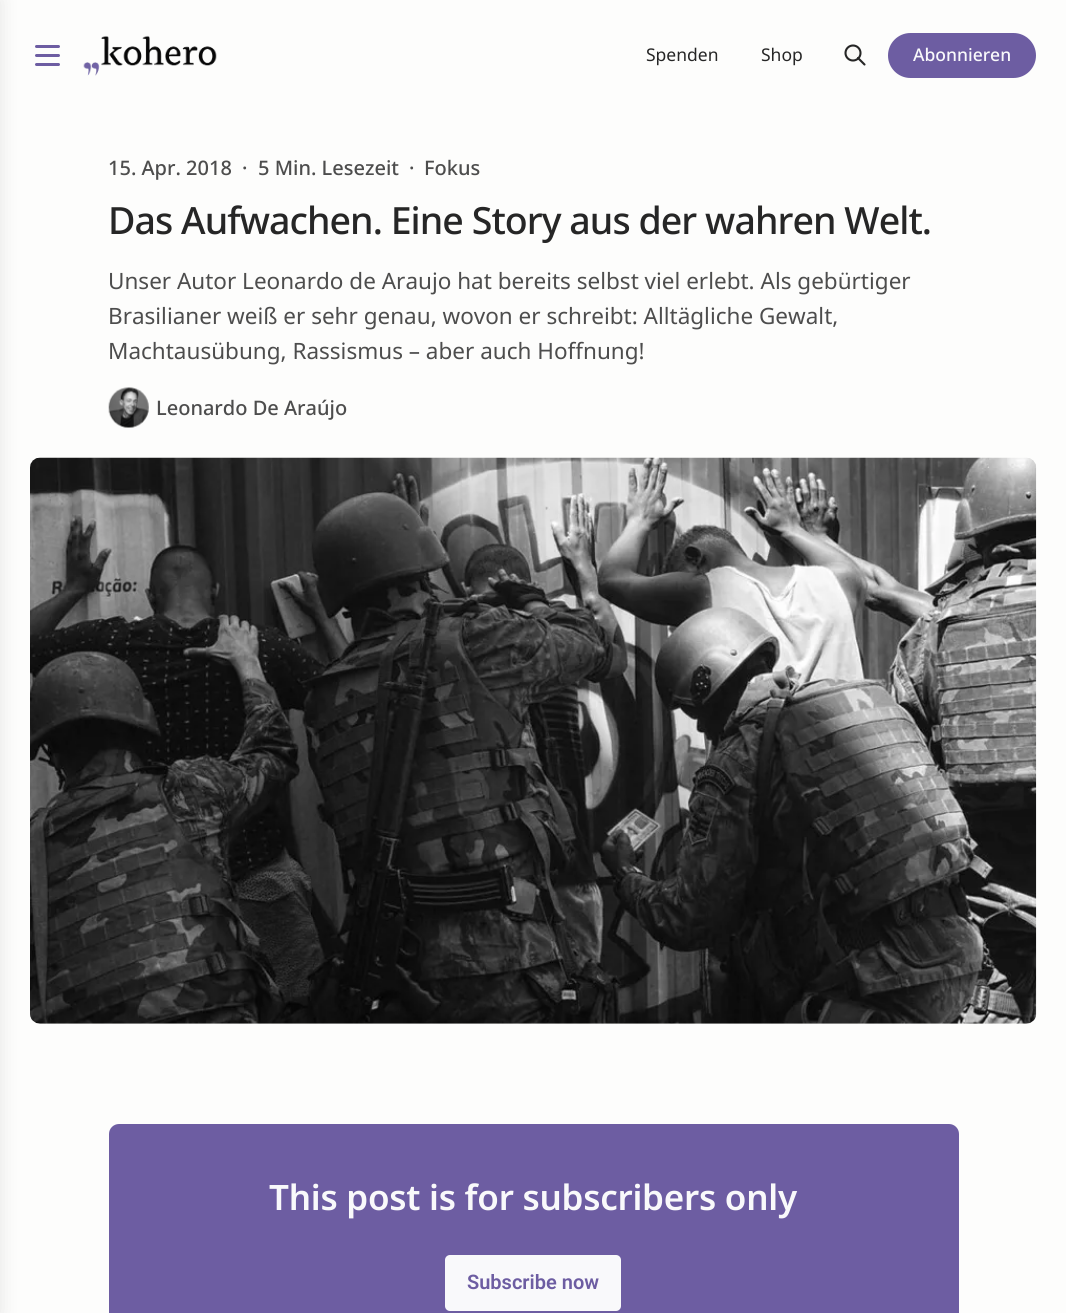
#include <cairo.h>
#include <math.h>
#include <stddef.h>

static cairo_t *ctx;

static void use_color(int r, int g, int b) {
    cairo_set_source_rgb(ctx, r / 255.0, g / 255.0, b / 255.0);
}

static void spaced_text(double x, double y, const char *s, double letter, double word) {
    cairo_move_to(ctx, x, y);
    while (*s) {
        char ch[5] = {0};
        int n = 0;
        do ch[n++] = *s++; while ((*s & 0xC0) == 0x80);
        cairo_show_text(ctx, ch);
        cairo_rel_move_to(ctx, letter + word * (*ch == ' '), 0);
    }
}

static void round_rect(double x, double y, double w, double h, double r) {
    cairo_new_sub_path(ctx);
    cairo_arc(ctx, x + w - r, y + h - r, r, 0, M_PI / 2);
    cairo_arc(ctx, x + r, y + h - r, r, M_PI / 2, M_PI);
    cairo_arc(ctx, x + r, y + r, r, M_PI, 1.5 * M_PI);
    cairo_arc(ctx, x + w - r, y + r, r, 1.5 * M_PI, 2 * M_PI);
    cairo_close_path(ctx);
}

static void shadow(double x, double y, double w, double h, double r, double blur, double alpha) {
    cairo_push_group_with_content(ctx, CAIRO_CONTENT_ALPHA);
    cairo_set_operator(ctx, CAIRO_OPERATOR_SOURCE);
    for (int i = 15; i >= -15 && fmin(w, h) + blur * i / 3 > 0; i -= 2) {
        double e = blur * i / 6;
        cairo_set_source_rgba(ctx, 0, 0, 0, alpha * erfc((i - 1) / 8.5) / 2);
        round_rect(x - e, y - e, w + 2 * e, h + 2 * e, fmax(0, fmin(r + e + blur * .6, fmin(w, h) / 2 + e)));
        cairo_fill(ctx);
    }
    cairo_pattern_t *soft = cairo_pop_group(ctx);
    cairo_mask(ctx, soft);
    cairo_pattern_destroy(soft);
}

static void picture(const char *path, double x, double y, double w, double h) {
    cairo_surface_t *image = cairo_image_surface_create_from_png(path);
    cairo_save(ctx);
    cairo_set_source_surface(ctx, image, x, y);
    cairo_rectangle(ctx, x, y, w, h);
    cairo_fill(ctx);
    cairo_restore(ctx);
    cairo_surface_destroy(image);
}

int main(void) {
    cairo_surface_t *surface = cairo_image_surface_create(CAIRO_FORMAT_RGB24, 1066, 1313);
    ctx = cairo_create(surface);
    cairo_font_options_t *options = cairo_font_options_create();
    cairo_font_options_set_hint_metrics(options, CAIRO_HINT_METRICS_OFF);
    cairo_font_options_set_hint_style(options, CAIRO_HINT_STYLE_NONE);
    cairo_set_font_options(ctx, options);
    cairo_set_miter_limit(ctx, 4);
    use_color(253, 253, 252);
    cairo_paint(ctx);
    use_color(0, 0, 0);
    shadow(-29, 0, 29, 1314, 0, 9.5, 0.1);
    use_color(109, 93, 162);
    round_rect(35, 45, 25, 3, 1.5);
    cairo_fill(ctx);
    round_rect(35, 54, 25, 3, 1.5);
    cairo_fill(ctx);
    round_rect(35, 63, 25, 3, 1.5);
    cairo_fill(ctx);
    picture("img1.png", 83, 35, 134, 41);
    cairo_select_font_face(ctx, "Noto Sans", CAIRO_FONT_SLANT_NORMAL, CAIRO_FONT_WEIGHT_NORMAL);
    cairo_set_font_size(ctx, 17.5);
    use_color(38, 38, 38);
    cairo_move_to(ctx, 646, 61);
    cairo_show_text(ctx, "Spenden");
    cairo_move_to(ctx, 761, 61);
    cairo_show_text(ctx, "Shop");
    use_color(249, 248, 246);
    cairo_new_path(ctx);
    cairo_arc(ctx, 853, 53, 7.5, 0, 2 * M_PI);
    cairo_fill_preserve(ctx);
    use_color(38, 38, 38);
    cairo_set_line_width(ctx, 2.1);
    cairo_stroke(ctx);
    cairo_new_path(ctx);
    cairo_move_to(ctx, 864.5, 64.5);
    cairo_line_to(ctx, 858, 58);
    cairo_set_line_cap(ctx, CAIRO_LINE_CAP_ROUND);
    cairo_set_line_join(ctx, CAIRO_LINE_JOIN_ROUND);
    cairo_stroke(ctx);
    use_color(109, 93, 162);
    round_rect(888, 33, 148, 45, 22.5);
    cairo_fill(ctx);
    cairo_select_font_face(ctx, "Noto Sans Medium", CAIRO_FONT_SLANT_NORMAL, CAIRO_FONT_WEIGHT_NORMAL);
    use_color(249, 249, 251);
    cairo_move_to(ctx, 913, 61);
    cairo_show_text(ctx, "Abonnieren");
    cairo_set_font_size(ctx, 20);
    use_color(77, 77, 77);
    cairo_move_to(ctx, 108, 175);
    cairo_show_text(ctx, "15. Apr. 2018");
    cairo_move_to(ctx, 242, 175);
    cairo_show_text(ctx, "·");
    cairo_move_to(ctx, 258, 175);
    cairo_show_text(ctx, "5 Min. Lesezeit");
    cairo_move_to(ctx, 409, 175);
    cairo_show_text(ctx, "·");
    cairo_move_to(ctx, 424, 175);
    cairo_show_text(ctx, "Fokus");
    cairo_set_font_size(ctx, 37.5);
    use_color(38, 38, 38);
    spaced_text(108, 234, "Das Aufwachen. Eine Story aus der wahren Welt.", -0.95, 0);
    cairo_select_font_face(ctx, "Noto Sans", CAIRO_FONT_SLANT_NORMAL, CAIRO_FONT_WEIGHT_NORMAL);
    cairo_set_font_size(ctx, 22.5);
    use_color(77, 77, 77);
    cairo_move_to(ctx, 108, 289);
    cairo_show_text(ctx, "Unser Autor Leonardo de Araujo hat bereits selbst viel erlebt. Als gebürtiger");
    cairo_move_to(ctx, 108, 324);
    cairo_show_text(ctx, "Brasilianer weiß er sehr genau, wovon er schreibt: Alltägliche Gewalt,");
    cairo_move_to(ctx, 108, 359);
    cairo_show_text(ctx, "Machtausübung, Rassismus – aber auch Hoffnung!");
    picture("img2.png", 108, 387, 41, 41);
    cairo_select_font_face(ctx, "Noto Sans Medium", CAIRO_FONT_SLANT_NORMAL, CAIRO_FONT_WEIGHT_NORMAL);
    cairo_set_font_size(ctx, 20);
    cairo_move_to(ctx, 156, 415);
    cairo_show_text(ctx, "Leonardo De Araújo");
    use_color(249, 248, 246);
    round_rect(30, 458, 1006, 566, 10);
    cairo_fill(ctx);
    picture("img3.png", 30, 457, 1007, 567);
    use_color(109, 93, 162);
    round_rect(109, 1124, 850, 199, 10);
    cairo_fill(ctx);
    cairo_select_font_face(ctx, "Noto Sans SemiBold", CAIRO_FONT_SLANT_NORMAL, CAIRO_FONT_WEIGHT_NORMAL);
    cairo_set_font_size(ctx, 35);
    use_color(249, 249, 251);
    spaced_text(269, 1210, "This post is for subscribers only", -0.25, 0);
    round_rect(445, 1255, 176, 56, 5);
    cairo_fill(ctx);
    cairo_select_font_face(ctx, "Roboto SemiBold", CAIRO_FONT_SLANT_NORMAL, CAIRO_FONT_WEIGHT_NORMAL);
    cairo_set_font_size(ctx, 20);
    use_color(109, 93, 162);
    cairo_move_to(ctx, 467, 1289);
    cairo_show_text(ctx, "Subscribe now");
    cairo_surface_write_to_png(surface, "result.png");
    cairo_font_options_destroy(options);
    cairo_destroy(ctx);
    cairo_surface_destroy(surface);
    return 0;
}
